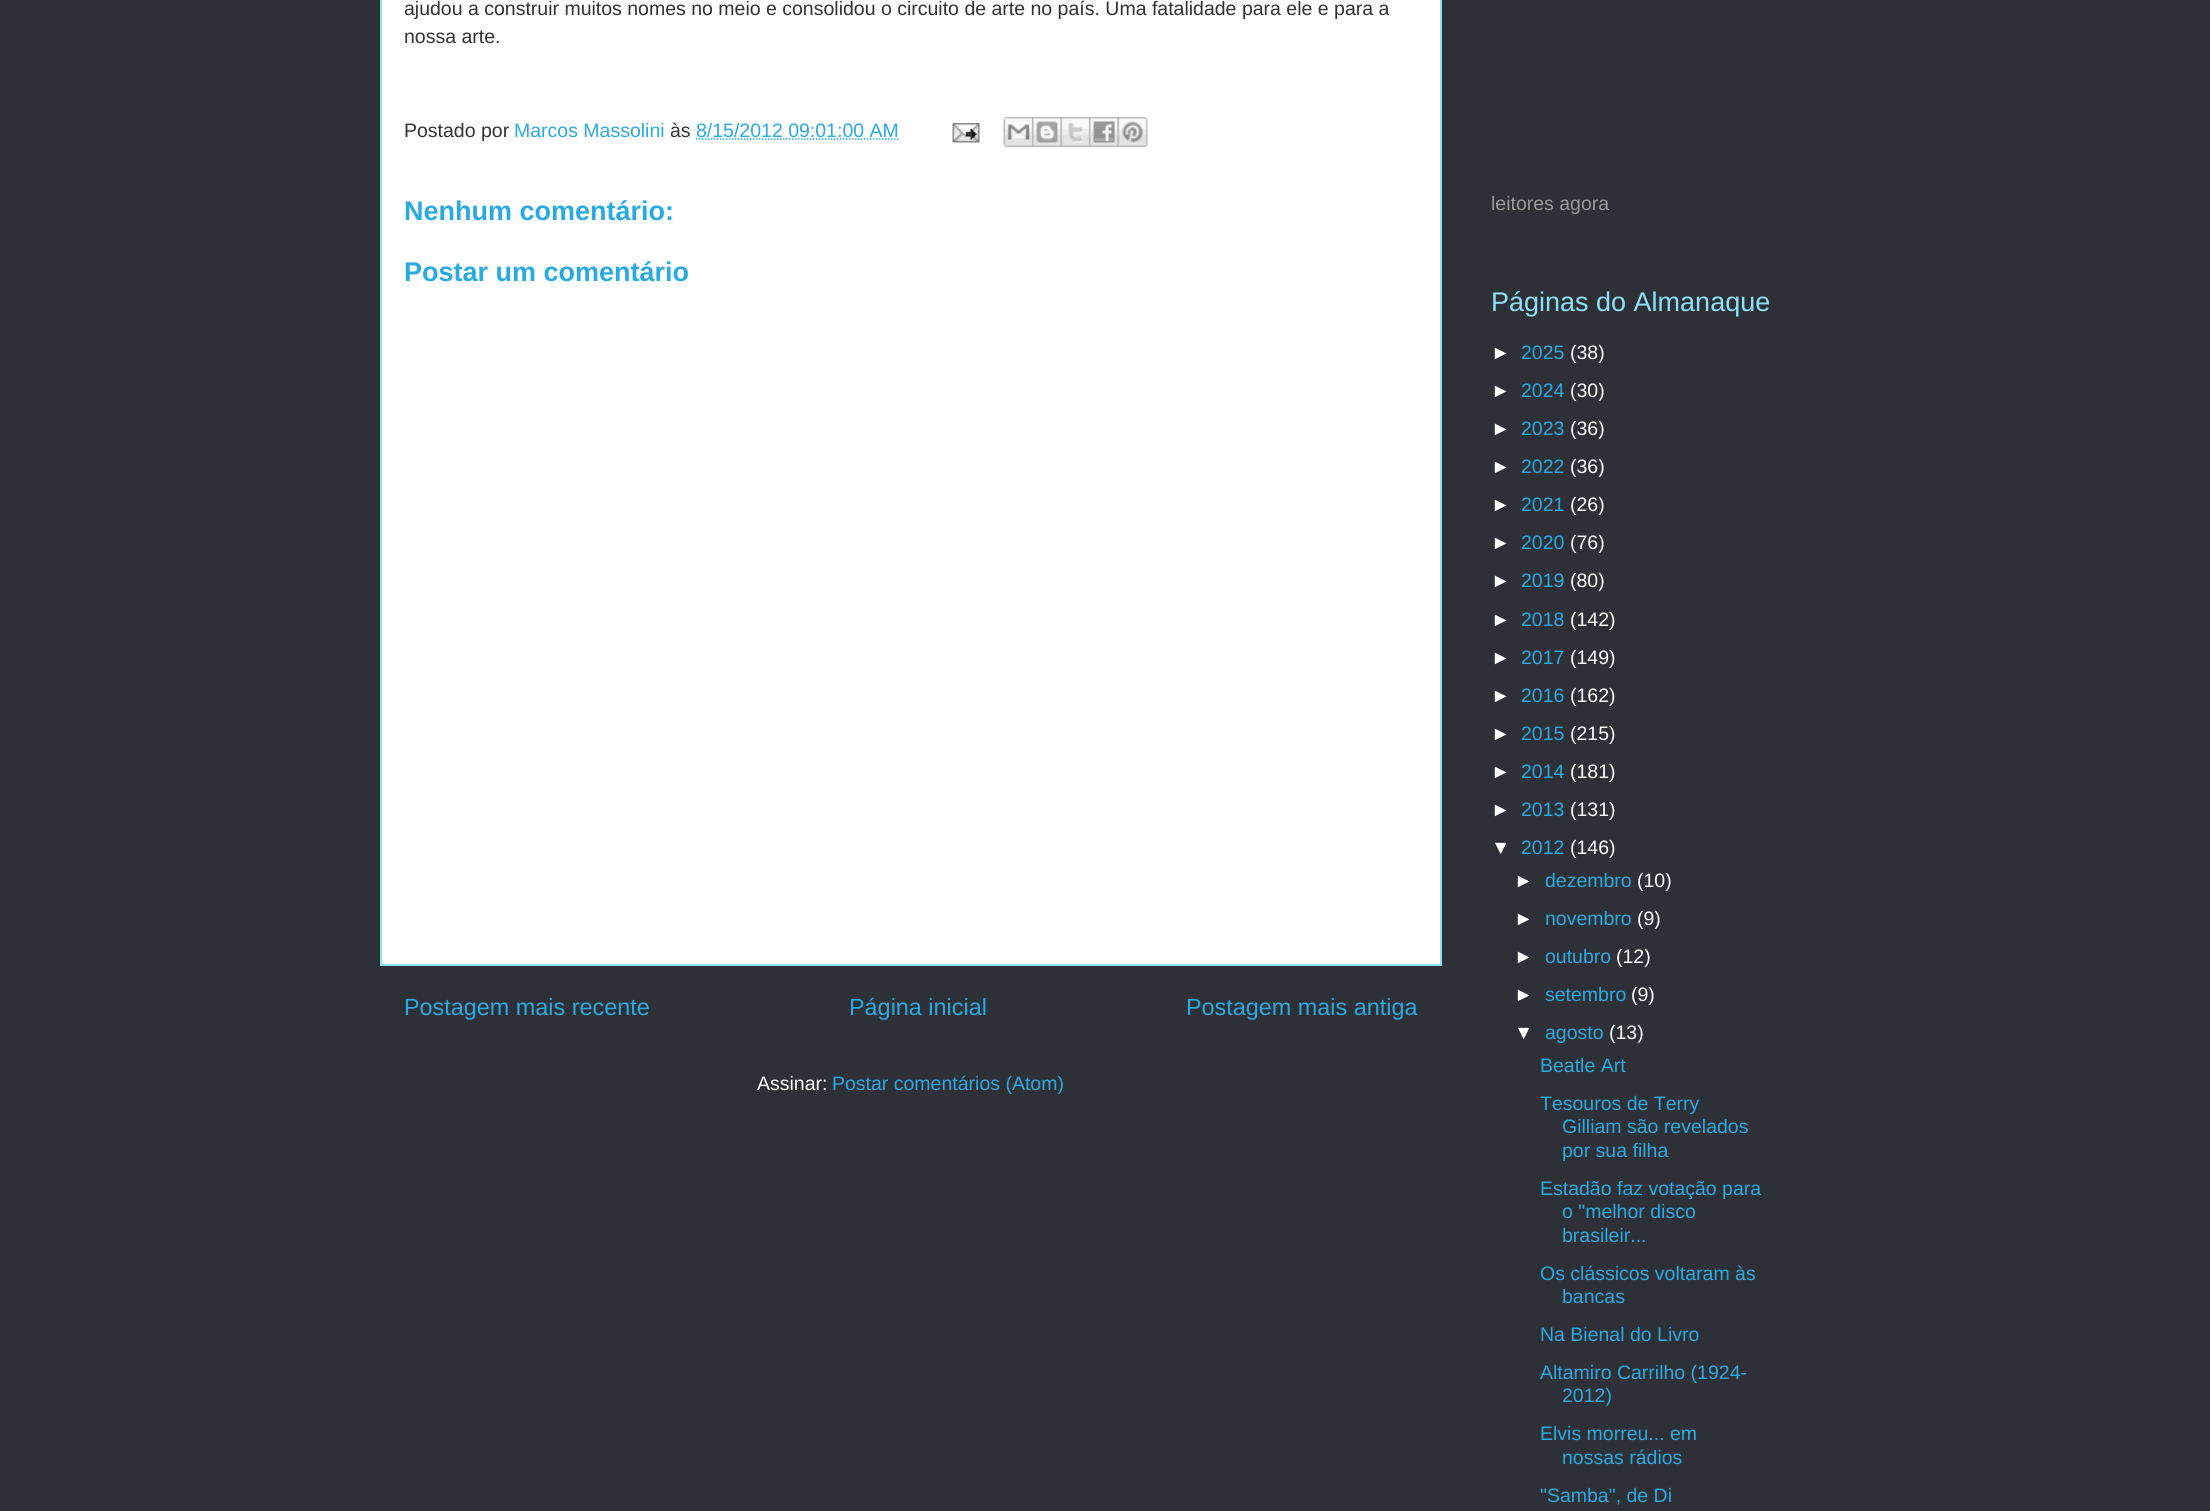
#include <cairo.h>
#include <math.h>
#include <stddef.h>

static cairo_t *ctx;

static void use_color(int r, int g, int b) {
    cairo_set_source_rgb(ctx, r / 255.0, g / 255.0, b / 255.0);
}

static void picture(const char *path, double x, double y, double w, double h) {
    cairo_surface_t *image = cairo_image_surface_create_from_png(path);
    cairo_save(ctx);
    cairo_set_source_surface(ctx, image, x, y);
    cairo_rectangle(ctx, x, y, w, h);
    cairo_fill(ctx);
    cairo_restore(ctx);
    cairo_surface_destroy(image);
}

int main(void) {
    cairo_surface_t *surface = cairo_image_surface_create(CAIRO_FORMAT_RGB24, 2210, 1511);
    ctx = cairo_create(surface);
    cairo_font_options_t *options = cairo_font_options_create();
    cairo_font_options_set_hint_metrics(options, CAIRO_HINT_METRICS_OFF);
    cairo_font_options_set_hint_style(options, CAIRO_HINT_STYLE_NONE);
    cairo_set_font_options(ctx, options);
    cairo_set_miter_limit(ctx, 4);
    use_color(45, 48, 55);
    cairo_paint(ctx);
    use_color(255, 255, 255);
    cairo_rectangle(ctx, 381, -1, 1060, 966);
    cairo_fill_preserve(ctx);
    use_color(140, 225, 245);
    cairo_stroke(ctx);
    cairo_select_font_face(ctx, "Liberation Sans", CAIRO_FONT_SLANT_NORMAL, CAIRO_FONT_WEIGHT_NORMAL);
    cairo_set_font_size(ctx, 19.5);
    use_color(51, 51, 51);
    cairo_move_to(ctx, 404, 15);
    cairo_show_text(ctx, "ajudou a construir muitos nomes no meio e consolidou o circuito de arte no país. Uma fatalidade para ele e para a");
    cairo_move_to(ctx, 404, 43);
    cairo_show_text(ctx, "nossa arte.");
    cairo_move_to(ctx, 404, 137);
    cairo_show_text(ctx, "Postado por");
    use_color(41, 170, 225);
    cairo_move_to(ctx, 514, 137);
    cairo_show_text(ctx, "Marcos Massolini");
    use_color(51, 51, 51);
    cairo_move_to(ctx, 670, 137);
    cairo_show_text(ctx, "às");
    use_color(41, 170, 225);
    cairo_move_to(ctx, 696, 137);
    cairo_show_text(ctx, "8/15/2012 09:01:00 AM");
    cairo_new_path(ctx);
    cairo_move_to(ctx, 696, 139);
    cairo_line_to(ctx, 899, 139);
    cairo_set_line_width(ctx, 1.5);
    cairo_set_dash(ctx, (double[]){1.5, 1.5}, 2, 0);
    cairo_stroke(ctx);
    picture("img1.png", 952, 123, 28, 20);
    picture("img2.png", 1003, 117, 29, 30);
    picture("img3.png", 1032, 117, 29, 30);
    picture("img4.png", 1060, 117, 29, 30);
    picture("img5.png", 1089, 117, 29, 30);
    picture("img6.png", 1117, 117, 31, 30);
    cairo_select_font_face(ctx, "Liberation Sans", CAIRO_FONT_SLANT_NORMAL, CAIRO_FONT_WEIGHT_BOLD);
    cairo_set_font_size(ctx, 27);
    cairo_move_to(ctx, 404, 220);
    cairo_show_text(ctx, "Nenhum comentário:");
    cairo_move_to(ctx, 404, 281);
    cairo_show_text(ctx, "Postar um comentário");
    cairo_select_font_face(ctx, "Liberation Sans", CAIRO_FONT_SLANT_NORMAL, CAIRO_FONT_WEIGHT_NORMAL);
    cairo_set_font_size(ctx, 23.4);
    cairo_move_to(ctx, 404, 1015);
    cairo_show_text(ctx, "Postagem mais recente");
    cairo_move_to(ctx, 849, 1015);
    cairo_show_text(ctx, "Página inicial");
    cairo_move_to(ctx, 1186, 1015);
    cairo_show_text(ctx, "Postagem mais antiga");
    cairo_set_font_size(ctx, 19.5);
    use_color(255, 255, 255);
    cairo_move_to(ctx, 757, 1090);
    cairo_show_text(ctx, "Assinar:");
    use_color(41, 170, 225);
    cairo_move_to(ctx, 832, 1090);
    cairo_show_text(ctx, "Postar comentários (Atom)");
    use_color(153, 153, 153);
    cairo_move_to(ctx, 1491, 210);
    cairo_show_text(ctx, "leitores agora");
    cairo_set_font_size(ctx, 27);
    use_color(140, 225, 245);
    cairo_move_to(ctx, 1491, 311);
    cairo_show_text(ctx, "Páginas do Almanaque");
    cairo_set_font_size(ctx, 19.5);
    use_color(255, 255, 255);
    cairo_move_to(ctx, 1491, 359);
    cairo_show_text(ctx, "►");
    use_color(41, 170, 225);
    cairo_move_to(ctx, 1521, 359);
    cairo_show_text(ctx, "2025");
    use_color(255, 255, 255);
    cairo_move_to(ctx, 1570, 359);
    cairo_show_text(ctx, "(38)");
    cairo_move_to(ctx, 1491, 397);
    cairo_show_text(ctx, "►");
    use_color(41, 170, 225);
    cairo_move_to(ctx, 1521, 397);
    cairo_show_text(ctx, "2024");
    use_color(255, 255, 255);
    cairo_move_to(ctx, 1570, 397);
    cairo_show_text(ctx, "(30)");
    cairo_move_to(ctx, 1491, 435);
    cairo_show_text(ctx, "►");
    use_color(41, 170, 225);
    cairo_move_to(ctx, 1521, 435);
    cairo_show_text(ctx, "2023");
    use_color(255, 255, 255);
    cairo_move_to(ctx, 1570, 435);
    cairo_show_text(ctx, "(36)");
    cairo_move_to(ctx, 1491, 473);
    cairo_show_text(ctx, "►");
    use_color(41, 170, 225);
    cairo_move_to(ctx, 1521, 473);
    cairo_show_text(ctx, "2022");
    use_color(255, 255, 255);
    cairo_move_to(ctx, 1570, 473);
    cairo_show_text(ctx, "(36)");
    cairo_move_to(ctx, 1491, 511);
    cairo_show_text(ctx, "►");
    use_color(41, 170, 225);
    cairo_move_to(ctx, 1521, 511);
    cairo_show_text(ctx, "2021");
    use_color(255, 255, 255);
    cairo_move_to(ctx, 1570, 511);
    cairo_show_text(ctx, "(26)");
    cairo_move_to(ctx, 1491, 549);
    cairo_show_text(ctx, "►");
    use_color(41, 170, 225);
    cairo_move_to(ctx, 1521, 549);
    cairo_show_text(ctx, "2020");
    use_color(255, 255, 255);
    cairo_move_to(ctx, 1570, 549);
    cairo_show_text(ctx, "(76)");
    cairo_move_to(ctx, 1491, 587);
    cairo_show_text(ctx, "►");
    use_color(41, 170, 225);
    cairo_move_to(ctx, 1521, 587);
    cairo_show_text(ctx, "2019");
    use_color(255, 255, 255);
    cairo_move_to(ctx, 1570, 587);
    cairo_show_text(ctx, "(80)");
    cairo_move_to(ctx, 1491, 626);
    cairo_show_text(ctx, "►");
    use_color(41, 170, 225);
    cairo_move_to(ctx, 1521, 626);
    cairo_show_text(ctx, "2018");
    use_color(255, 255, 255);
    cairo_move_to(ctx, 1570, 626);
    cairo_show_text(ctx, "(142)");
    cairo_move_to(ctx, 1491, 664);
    cairo_show_text(ctx, "►");
    use_color(41, 170, 225);
    cairo_move_to(ctx, 1521, 664);
    cairo_show_text(ctx, "2017");
    use_color(255, 255, 255);
    cairo_move_to(ctx, 1570, 664);
    cairo_show_text(ctx, "(149)");
    cairo_move_to(ctx, 1491, 702);
    cairo_show_text(ctx, "►");
    use_color(41, 170, 225);
    cairo_move_to(ctx, 1521, 702);
    cairo_show_text(ctx, "2016");
    use_color(255, 255, 255);
    cairo_move_to(ctx, 1570, 702);
    cairo_show_text(ctx, "(162)");
    cairo_move_to(ctx, 1491, 740);
    cairo_show_text(ctx, "►");
    use_color(41, 170, 225);
    cairo_move_to(ctx, 1521, 740);
    cairo_show_text(ctx, "2015");
    use_color(255, 255, 255);
    cairo_move_to(ctx, 1570, 740);
    cairo_show_text(ctx, "(215)");
    cairo_move_to(ctx, 1491, 778);
    cairo_show_text(ctx, "►");
    use_color(41, 170, 225);
    cairo_move_to(ctx, 1521, 778);
    cairo_show_text(ctx, "2014");
    use_color(255, 255, 255);
    cairo_move_to(ctx, 1570, 778);
    cairo_show_text(ctx, "(181)");
    cairo_move_to(ctx, 1491, 816);
    cairo_show_text(ctx, "►");
    use_color(41, 170, 225);
    cairo_move_to(ctx, 1521, 816);
    cairo_show_text(ctx, "2013");
    use_color(255, 255, 255);
    cairo_move_to(ctx, 1570, 816);
    cairo_show_text(ctx, "(131)");
    cairo_move_to(ctx, 1491, 854);
    cairo_show_text(ctx, "▼");
    use_color(41, 170, 225);
    cairo_move_to(ctx, 1521, 854);
    cairo_show_text(ctx, "2012");
    use_color(255, 255, 255);
    cairo_move_to(ctx, 1570, 854);
    cairo_show_text(ctx, "(146)");
    cairo_move_to(ctx, 1514, 887);
    cairo_show_text(ctx, "►");
    use_color(41, 170, 225);
    cairo_move_to(ctx, 1545, 887);
    cairo_show_text(ctx, "dezembro");
    use_color(255, 255, 255);
    cairo_move_to(ctx, 1637, 887);
    cairo_show_text(ctx, "(10)");
    cairo_move_to(ctx, 1514, 925);
    cairo_show_text(ctx, "►");
    use_color(41, 170, 225);
    cairo_move_to(ctx, 1545, 925);
    cairo_show_text(ctx, "novembro");
    use_color(255, 255, 255);
    cairo_move_to(ctx, 1637, 925);
    cairo_show_text(ctx, "(9)");
    cairo_move_to(ctx, 1514, 963);
    cairo_show_text(ctx, "►");
    use_color(41, 170, 225);
    cairo_move_to(ctx, 1545, 963);
    cairo_show_text(ctx, "outubro");
    use_color(255, 255, 255);
    cairo_move_to(ctx, 1616, 963);
    cairo_show_text(ctx, "(12)");
    cairo_move_to(ctx, 1514, 1001);
    cairo_show_text(ctx, "►");
    use_color(41, 170, 225);
    cairo_move_to(ctx, 1545, 1001);
    cairo_show_text(ctx, "setembro");
    use_color(255, 255, 255);
    cairo_move_to(ctx, 1631, 1001);
    cairo_show_text(ctx, "(9)");
    cairo_move_to(ctx, 1514, 1039);
    cairo_show_text(ctx, "▼");
    use_color(41, 170, 225);
    cairo_move_to(ctx, 1545, 1039);
    cairo_show_text(ctx, "agosto");
    use_color(255, 255, 255);
    cairo_move_to(ctx, 1609, 1039);
    cairo_show_text(ctx, "(13)");
    use_color(41, 170, 225);
    cairo_move_to(ctx, 1540, 1072);
    cairo_show_text(ctx, "Beatle Art");
    cairo_move_to(ctx, 1540, 1110);
    cairo_show_text(ctx, "Tesouros de Terry");
    cairo_move_to(ctx, 1562, 1133);
    cairo_show_text(ctx, "Gilliam são revelados");
    cairo_move_to(ctx, 1562, 1157);
    cairo_show_text(ctx, "por sua filha");
    cairo_move_to(ctx, 1540, 1195);
    cairo_show_text(ctx, "Estadão faz votação para");
    cairo_move_to(ctx, 1562, 1218);
    cairo_show_text(ctx, "o \"melhor disco");
    cairo_move_to(ctx, 1562, 1242);
    cairo_show_text(ctx, "brasileir...");
    cairo_move_to(ctx, 1540, 1280);
    cairo_show_text(ctx, "Os clássicos voltaram às");
    cairo_move_to(ctx, 1562, 1303);
    cairo_show_text(ctx, "bancas");
    cairo_move_to(ctx, 1540, 1341);
    cairo_show_text(ctx, "Na Bienal do Livro");
    cairo_move_to(ctx, 1540, 1379);
    cairo_show_text(ctx, "Altamiro Carrilho (1924-");
    cairo_move_to(ctx, 1562, 1402);
    cairo_show_text(ctx, "2012)");
    cairo_move_to(ctx, 1540, 1440);
    cairo_show_text(ctx, "Elvis morreu... em");
    cairo_move_to(ctx, 1562, 1464);
    cairo_show_text(ctx, "nossas rádios");
    cairo_move_to(ctx, 1540, 1502);
    cairo_show_text(ctx, "\"Samba\", de Di");
    cairo_surface_write_to_png(surface, "result.png");
    cairo_font_options_destroy(options);
    cairo_destroy(ctx);
    cairo_surface_destroy(surface);
    return 0;
}
